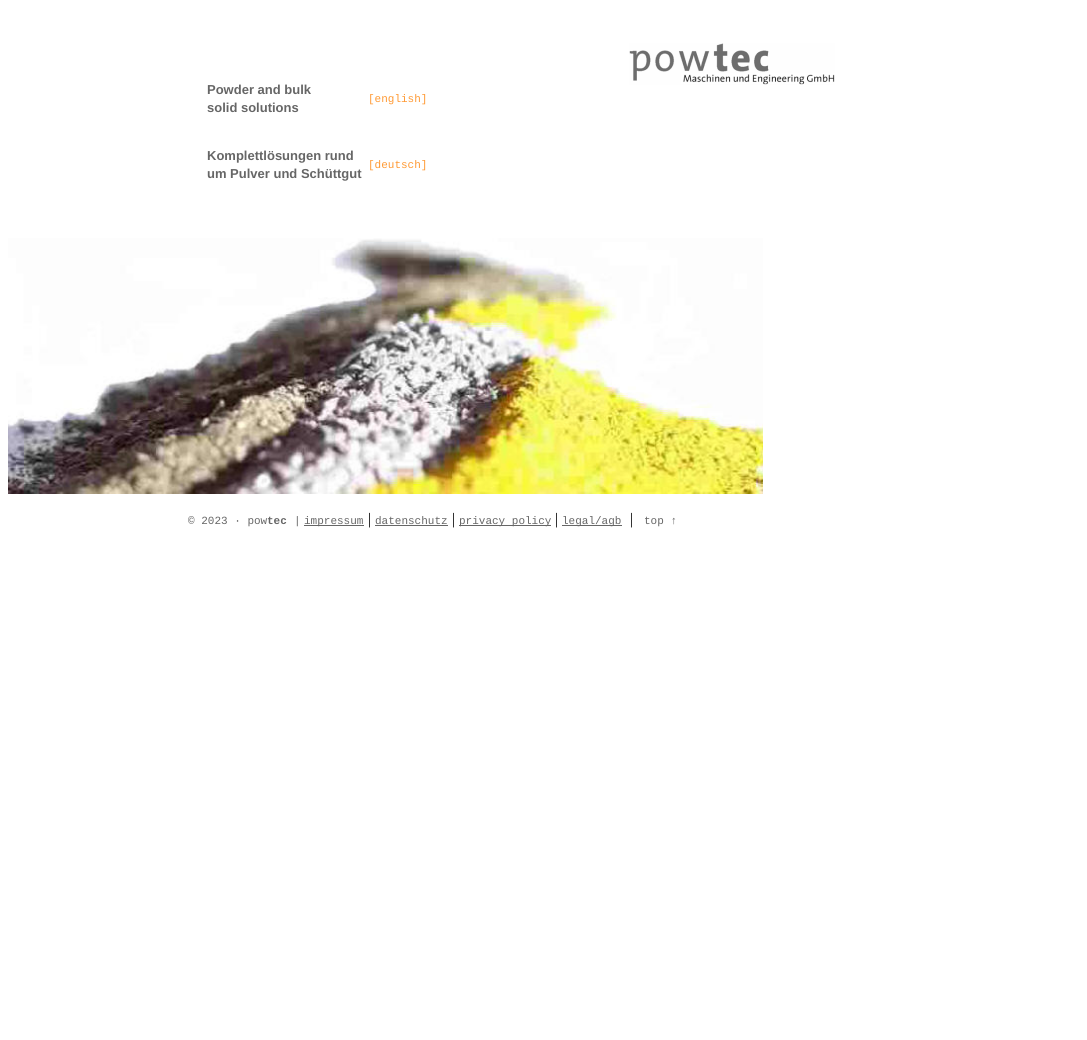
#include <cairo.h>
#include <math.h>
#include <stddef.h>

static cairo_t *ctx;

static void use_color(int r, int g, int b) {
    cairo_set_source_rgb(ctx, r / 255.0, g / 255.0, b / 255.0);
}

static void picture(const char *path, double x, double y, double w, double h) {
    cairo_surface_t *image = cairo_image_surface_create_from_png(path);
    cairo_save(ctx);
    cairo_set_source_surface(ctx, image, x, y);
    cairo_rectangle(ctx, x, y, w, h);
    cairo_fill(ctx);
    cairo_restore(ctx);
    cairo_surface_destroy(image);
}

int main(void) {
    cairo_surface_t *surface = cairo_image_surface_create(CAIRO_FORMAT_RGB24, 1087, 1040);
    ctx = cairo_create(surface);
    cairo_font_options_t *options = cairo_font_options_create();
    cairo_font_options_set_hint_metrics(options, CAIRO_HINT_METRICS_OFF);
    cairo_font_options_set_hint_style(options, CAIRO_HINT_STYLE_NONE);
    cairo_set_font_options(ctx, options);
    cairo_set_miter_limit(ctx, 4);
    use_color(255, 255, 255);
    cairo_paint(ctx);
    picture("img1.png", 629, 43, 206, 42);
    cairo_select_font_face(ctx, "Liberation Sans", CAIRO_FONT_SLANT_NORMAL, CAIRO_FONT_WEIGHT_BOLD);
    cairo_set_font_size(ctx, 13);
    use_color(102, 102, 102);
    cairo_move_to(ctx, 207, 94);
    cairo_show_text(ctx, "Powder and bulk");
    cairo_move_to(ctx, 207, 112);
    cairo_show_text(ctx, "solid solutions");
    cairo_select_font_face(ctx, "Liberation Mono", CAIRO_FONT_SLANT_NORMAL, CAIRO_FONT_WEIGHT_NORMAL);
    cairo_set_font_size(ctx, 11);
    use_color(255, 153, 51);
    cairo_move_to(ctx, 368, 102);
    cairo_show_text(ctx, "[english]");
    cairo_select_font_face(ctx, "Liberation Sans", CAIRO_FONT_SLANT_NORMAL, CAIRO_FONT_WEIGHT_BOLD);
    cairo_set_font_size(ctx, 13);
    use_color(102, 102, 102);
    cairo_move_to(ctx, 207, 160);
    cairo_show_text(ctx, "Komplettlösungen rund");
    cairo_move_to(ctx, 207, 178);
    cairo_show_text(ctx, "um Pulver und Schüttgut");
    cairo_select_font_face(ctx, "Liberation Mono", CAIRO_FONT_SLANT_NORMAL, CAIRO_FONT_WEIGHT_NORMAL);
    cairo_set_font_size(ctx, 11);
    use_color(255, 153, 51);
    cairo_move_to(ctx, 368, 168);
    cairo_show_text(ctx, "[deutsch]");
    picture("img2.png", 8, 238, 755, 256);
    use_color(102, 102, 102);
    cairo_move_to(ctx, 188, 524);
    cairo_show_text(ctx, "© 2023 · pow");
    cairo_select_font_face(ctx, "Liberation Mono", CAIRO_FONT_SLANT_NORMAL, CAIRO_FONT_WEIGHT_BOLD);
    cairo_move_to(ctx, 267, 524);
    cairo_show_text(ctx, "tec");
    cairo_select_font_face(ctx, "Liberation Mono", CAIRO_FONT_SLANT_NORMAL, CAIRO_FONT_WEIGHT_NORMAL);
    cairo_move_to(ctx, 294, 524);
    cairo_show_text(ctx, "|");
    cairo_rectangle(ctx, 304, 525, 60, 1);
    cairo_fill(ctx);
    cairo_move_to(ctx, 304, 524);
    cairo_show_text(ctx, "impressum");
    cairo_select_font_face(ctx, "Liberation Serif", CAIRO_FONT_SLANT_NORMAL, CAIRO_FONT_WEIGHT_NORMAL);
    cairo_set_font_size(ctx, 16);
    use_color(0, 0, 0);
    cairo_move_to(ctx, 368, 524);
    cairo_show_text(ctx, "|");
    cairo_select_font_face(ctx, "Liberation Mono", CAIRO_FONT_SLANT_NORMAL, CAIRO_FONT_WEIGHT_NORMAL);
    cairo_set_font_size(ctx, 11);
    use_color(102, 102, 102);
    cairo_move_to(ctx, 375, 524);
    cairo_show_text(ctx, "datenschutz");
    cairo_rectangle(ctx, 375, 525, 73, 1);
    cairo_fill(ctx);
    cairo_select_font_face(ctx, "Liberation Serif", CAIRO_FONT_SLANT_NORMAL, CAIRO_FONT_WEIGHT_NORMAL);
    cairo_set_font_size(ctx, 16);
    use_color(0, 0, 0);
    cairo_move_to(ctx, 452, 524);
    cairo_show_text(ctx, "|");
    use_color(102, 102, 102);
    cairo_rectangle(ctx, 459, 525, 92, 1);
    cairo_fill(ctx);
    cairo_select_font_face(ctx, "Liberation Mono", CAIRO_FONT_SLANT_NORMAL, CAIRO_FONT_WEIGHT_NORMAL);
    cairo_set_font_size(ctx, 11);
    cairo_move_to(ctx, 459, 524);
    cairo_show_text(ctx, "privacy policy");
    cairo_select_font_face(ctx, "Liberation Serif", CAIRO_FONT_SLANT_NORMAL, CAIRO_FONT_WEIGHT_NORMAL);
    cairo_set_font_size(ctx, 16);
    use_color(0, 0, 0);
    cairo_move_to(ctx, 555, 524);
    cairo_show_text(ctx, "|");
    use_color(102, 102, 102);
    cairo_rectangle(ctx, 562, 525, 60, 1);
    cairo_fill(ctx);
    cairo_select_font_face(ctx, "Liberation Mono", CAIRO_FONT_SLANT_NORMAL, CAIRO_FONT_WEIGHT_NORMAL);
    cairo_set_font_size(ctx, 11);
    cairo_move_to(ctx, 562, 524);
    cairo_show_text(ctx, "legal/agb");
    cairo_select_font_face(ctx, "Liberation Serif", CAIRO_FONT_SLANT_NORMAL, CAIRO_FONT_WEIGHT_NORMAL);
    cairo_set_font_size(ctx, 16);
    use_color(0, 0, 0);
    cairo_move_to(ctx, 630, 524);
    cairo_show_text(ctx, "|");
    cairo_select_font_face(ctx, "Liberation Mono", CAIRO_FONT_SLANT_NORMAL, CAIRO_FONT_WEIGHT_NORMAL);
    cairo_set_font_size(ctx, 11);
    use_color(102, 102, 102);
    cairo_move_to(ctx, 644, 524);
    cairo_show_text(ctx, "top ↑");
    cairo_surface_write_to_png(surface, "result.png");
    cairo_font_options_destroy(options);
    cairo_destroy(ctx);
    cairo_surface_destroy(surface);
    return 0;
}
